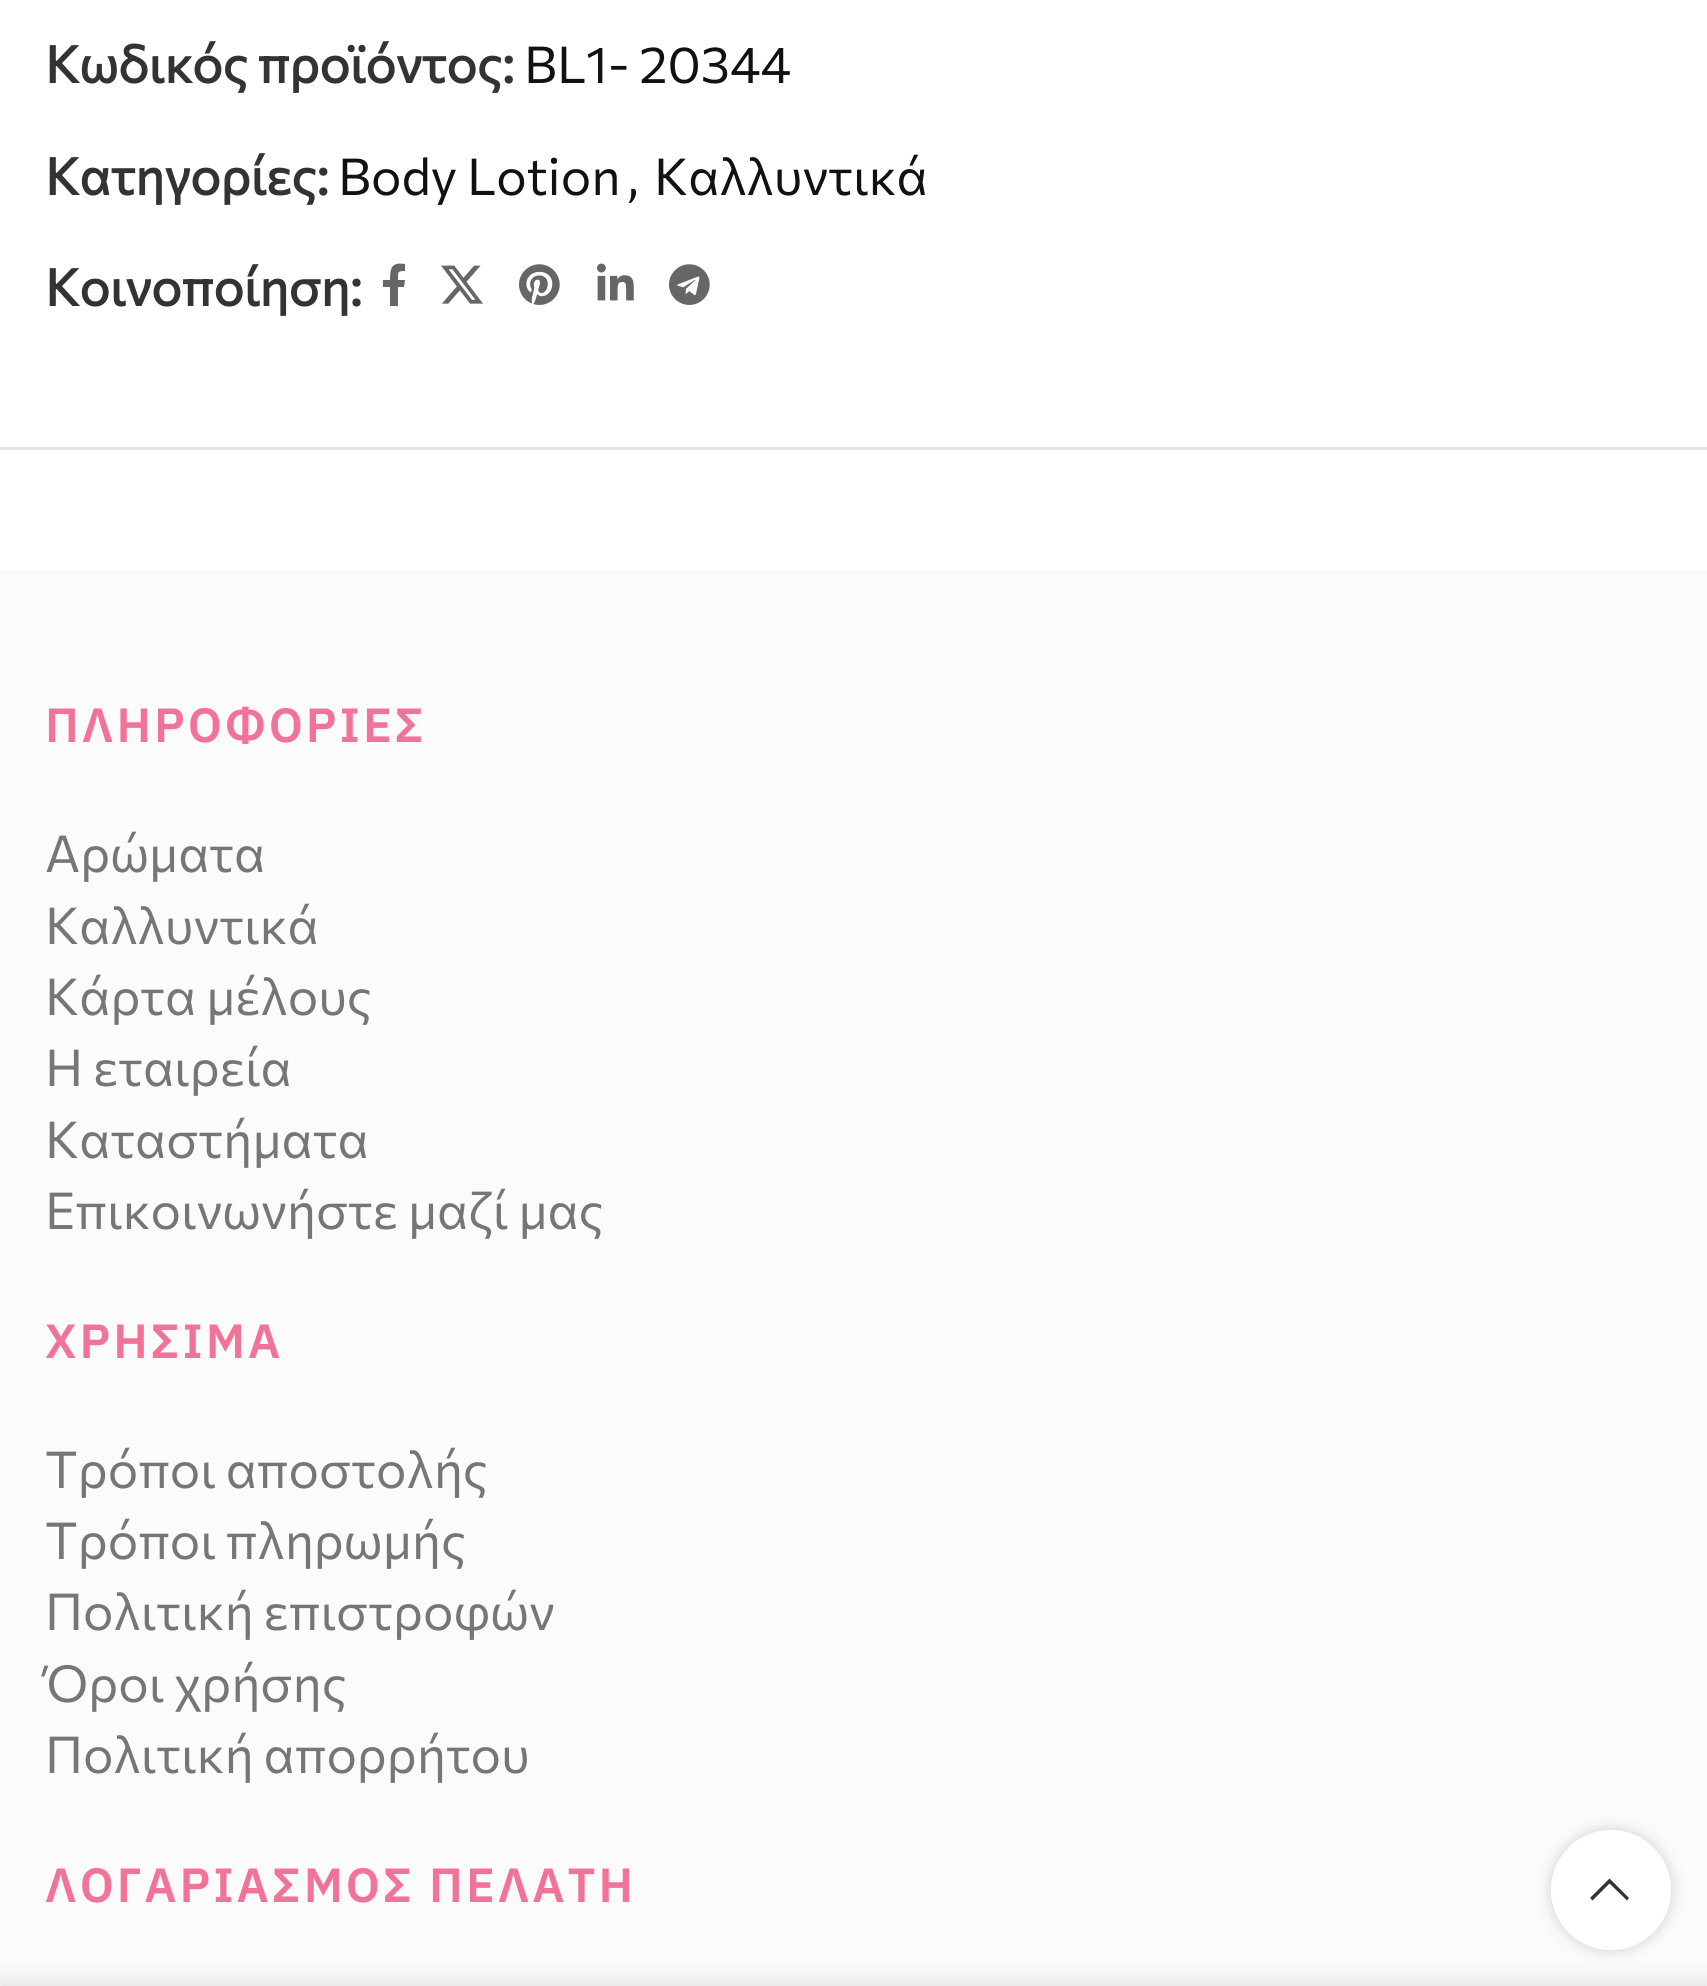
#include <cairo.h>
#include <math.h>
#include <stddef.h>

static cairo_t *ctx;

static void use_color(int r, int g, int b) {
    cairo_set_source_rgb(ctx, r / 255.0, g / 255.0, b / 255.0);
}

static void spaced_text(double x, double y, const char *s, double letter, double word) {
    cairo_move_to(ctx, x, y);
    while (*s) {
        char ch[5] = {0};
        int n = 0;
        do ch[n++] = *s++; while ((*s & 0xC0) == 0x80);
        cairo_show_text(ctx, ch);
        cairo_rel_move_to(ctx, letter + word * (*ch == ' '), 0);
    }
}

static void round_rect(double x, double y, double w, double h, double r) {
    cairo_new_sub_path(ctx);
    cairo_arc(ctx, x + w - r, y + h - r, r, 0, M_PI / 2);
    cairo_arc(ctx, x + r, y + h - r, r, M_PI / 2, M_PI);
    cairo_arc(ctx, x + r, y + r, r, M_PI, 1.5 * M_PI);
    cairo_arc(ctx, x + w - r, y + r, r, 1.5 * M_PI, 2 * M_PI);
    cairo_close_path(ctx);
}

static void shadow(double x, double y, double w, double h, double r, double blur, double alpha) {
    cairo_push_group_with_content(ctx, CAIRO_CONTENT_ALPHA);
    cairo_set_operator(ctx, CAIRO_OPERATOR_SOURCE);
    for (int i = 15; i >= -15 && fmin(w, h) + blur * i / 3 > 0; i -= 2) {
        double e = blur * i / 6;
        cairo_set_source_rgba(ctx, 0, 0, 0, alpha * erfc((i - 1) / 8.5) / 2);
        round_rect(x - e, y - e, w + 2 * e, h + 2 * e, fmax(0, fmin(r + e + blur * .6, fmin(w, h) / 2 + e)));
        cairo_fill(ctx);
    }
    cairo_pattern_t *soft = cairo_pop_group(ctx);
    cairo_mask(ctx, soft);
    cairo_pattern_destroy(soft);
}

static void picture(const char *path, double x, double y, double w, double h) {
    cairo_surface_t *image = cairo_image_surface_create_from_png(path);
    cairo_save(ctx);
    cairo_set_source_surface(ctx, image, x, y);
    cairo_rectangle(ctx, x, y, w, h);
    cairo_fill(ctx);
    cairo_restore(ctx);
    cairo_surface_destroy(image);
}

int main(void) {
    cairo_surface_t *surface = cairo_image_surface_create(CAIRO_FORMAT_RGB24, 1707, 1986);
    ctx = cairo_create(surface);
    cairo_font_options_t *options = cairo_font_options_create();
    cairo_font_options_set_hint_metrics(options, CAIRO_HINT_METRICS_OFF);
    cairo_font_options_set_hint_style(options, CAIRO_HINT_STYLE_NONE);
    cairo_set_font_options(ctx, options);
    cairo_set_miter_limit(ctx, 4);
    use_color(255, 255, 255);
    cairo_paint(ctx);
    cairo_select_font_face(ctx, "Commissioner", CAIRO_FONT_SLANT_NORMAL, CAIRO_FONT_WEIGHT_BOLD);
    cairo_set_font_size(ctx, 51);
    use_color(51, 51, 51);
    cairo_move_to(ctx, 45, 83);
    cairo_show_text(ctx, "Κωδικός προϊόντος:");
    cairo_select_font_face(ctx, "Commissioner", CAIRO_FONT_SLANT_NORMAL, CAIRO_FONT_WEIGHT_NORMAL);
    use_color(17, 17, 17);
    cairo_move_to(ctx, 524, 83);
    cairo_show_text(ctx, "BL1- 20344");
    cairo_select_font_face(ctx, "Commissioner", CAIRO_FONT_SLANT_NORMAL, CAIRO_FONT_WEIGHT_BOLD);
    use_color(51, 51, 51);
    cairo_move_to(ctx, 45, 195);
    cairo_show_text(ctx, "Κατηγορίες:");
    cairo_select_font_face(ctx, "Commissioner", CAIRO_FONT_SLANT_NORMAL, CAIRO_FONT_WEIGHT_NORMAL);
    use_color(17, 17, 17);
    cairo_move_to(ctx, 338, 195);
    cairo_show_text(ctx, "Body Lotion");
    cairo_move_to(ctx, 627, 195);
    cairo_show_text(ctx, ",");
    cairo_move_to(ctx, 654, 195);
    cairo_show_text(ctx, "Καλλυντικά");
    cairo_select_font_face(ctx, "Commissioner", CAIRO_FONT_SLANT_NORMAL, CAIRO_FONT_WEIGHT_BOLD);
    use_color(51, 51, 51);
    cairo_move_to(ctx, 45, 306);
    cairo_show_text(ctx, "Κοινοποίηση:");
    use_color(102, 102, 102);
    cairo_new_path(ctx);
    cairo_move_to(ctx, 404, 287);
    cairo_line_to(ctx, 405, 280);
    cairo_line_to(ctx, 398, 280);
    cairo_curve_to(ctx, 398, 272, 397, 271, 405, 271);
    cairo_line_to(ctx, 405, 264);
    cairo_curve_to(ctx, 392, 262, 390, 267, 390, 280);
    cairo_line_to(ctx, 383, 280);
    cairo_line_to(ctx, 383, 287);
    cairo_line_to(ctx, 390, 287);
    cairo_line_to(ctx, 390, 306);
    cairo_line_to(ctx, 398, 306);
    cairo_line_to(ctx, 398, 287);
    cairo_close_path(ctx);
    cairo_fill(ctx);
    picture("img1.png", 441, 265, 42, 39);
    picture("img2.png", 519, 264, 41, 41);
    picture("img3.png", 597, 263, 37, 38);
    picture("img4.png", 669, 264, 41, 41);
    use_color(228, 228, 228);
    cairo_rectangle(ctx, 0, 447, 1707, 3);
    cairo_fill(ctx);
    use_color(251, 251, 251);
    cairo_rectangle(ctx, 0, 570, 1707, 1416);
    cairo_fill(ctx);
    cairo_select_font_face(ctx, "IBM Plex Sans SemiBold", CAIRO_FONT_SLANT_NORMAL, CAIRO_FONT_WEIGHT_NORMAL);
    cairo_set_font_size(ctx, 48);
    use_color(241, 115, 151);
    spaced_text(45, 742, "ΠΛΗΡΟΦΟΡΙΕΣ", 3, 0);
    cairo_select_font_face(ctx, "Commissioner", CAIRO_FONT_SLANT_NORMAL, CAIRO_FONT_WEIGHT_NORMAL);
    cairo_set_font_size(ctx, 51);
    use_color(118, 118, 118);
    cairo_move_to(ctx, 45, 872);
    cairo_show_text(ctx, "Αρώματα");
    cairo_move_to(ctx, 45, 944);
    cairo_show_text(ctx, "Καλλυντικά");
    cairo_move_to(ctx, 45, 1015);
    cairo_show_text(ctx, "Κάρτα μέλους");
    cairo_move_to(ctx, 45, 1086);
    cairo_show_text(ctx, "Η εταιρεία");
    cairo_move_to(ctx, 45, 1158);
    cairo_show_text(ctx, "Καταστήματα");
    cairo_move_to(ctx, 45, 1229);
    cairo_show_text(ctx, "Επικοινωνήστε μαζί μας");
    cairo_select_font_face(ctx, "IBM Plex Sans SemiBold", CAIRO_FONT_SLANT_NORMAL, CAIRO_FONT_WEIGHT_NORMAL);
    cairo_set_font_size(ctx, 48);
    use_color(241, 115, 151);
    spaced_text(45, 1358, "ΧΡΗΣΙΜΑ", 3, 0);
    cairo_select_font_face(ctx, "Commissioner", CAIRO_FONT_SLANT_NORMAL, CAIRO_FONT_WEIGHT_NORMAL);
    cairo_set_font_size(ctx, 51);
    use_color(118, 118, 118);
    cairo_move_to(ctx, 45, 1488);
    cairo_show_text(ctx, "Τρόποι αποστολής");
    cairo_move_to(ctx, 45, 1559);
    cairo_show_text(ctx, "Τρόποι πληρωμής");
    cairo_move_to(ctx, 45, 1630);
    cairo_show_text(ctx, "Πολιτική επιστροφών");
    cairo_move_to(ctx, 45, 1702);
    cairo_show_text(ctx, "Όροι χρήσης");
    cairo_move_to(ctx, 45, 1773);
    cairo_show_text(ctx, "Πολιτική απορρήτου");
    cairo_select_font_face(ctx, "IBM Plex Sans SemiBold", CAIRO_FONT_SLANT_NORMAL, CAIRO_FONT_WEIGHT_NORMAL);
    cairo_set_font_size(ctx, 48);
    use_color(241, 115, 151);
    spaced_text(45, 1902, "ΛΟΓΑΡΙΑΣΜΟΣ ΠΕΛΑΤΗ", 3, 0);
    cairo_save(ctx);
    cairo_set_fill_rule(ctx, CAIRO_FILL_RULE_EVEN_ODD);
    cairo_new_path(ctx);
    cairo_move_to(ctx, 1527, 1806);
    cairo_line_to(ctx, 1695, 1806);
    cairo_line_to(ctx, 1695, 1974);
    cairo_line_to(ctx, 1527, 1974);
    cairo_close_path(ctx);
    cairo_move_to(ctx, 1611, 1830);
    cairo_curve_to(ctx, 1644, 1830, 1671, 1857, 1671, 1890);
    cairo_curve_to(ctx, 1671, 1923, 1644, 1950, 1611, 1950);
    cairo_curve_to(ctx, 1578, 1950, 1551, 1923, 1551, 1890);
    cairo_curve_to(ctx, 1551, 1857, 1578, 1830, 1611, 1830);
    cairo_close_path(ctx);
    cairo_clip(ctx);
    use_color(0, 0, 0);
    shadow(1551, 1830, 120, 120, 60, 7.5, 0.17);
    cairo_restore(ctx);
    cairo_set_source_rgba(ctx, 1, 1, 1, 0.9);
    cairo_arc(ctx, 1611, 1890, 60, 0, 2 * M_PI);
    cairo_fill(ctx);
    use_color(51, 51, 51);
    cairo_new_path(ctx);
    cairo_move_to(ctx, 1627, 1900.5);
    cairo_line_to(ctx, 1629, 1898);
    cairo_line_to(ctx, 1609.5, 1878.5);
    cairo_line_to(ctx, 1590, 1898);
    cairo_line_to(ctx, 1592.5, 1900.5);
    cairo_line_to(ctx, 1609.5, 1883.5);
    cairo_close_path(ctx);
    cairo_fill(ctx);
    use_color(0, 0, 0);
    shadow(0, 1986, 1707, 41, 0, 13.5, 0.14);
    cairo_surface_write_to_png(surface, "result.png");
    cairo_font_options_destroy(options);
    cairo_destroy(ctx);
    cairo_surface_destroy(surface);
    return 0;
}
